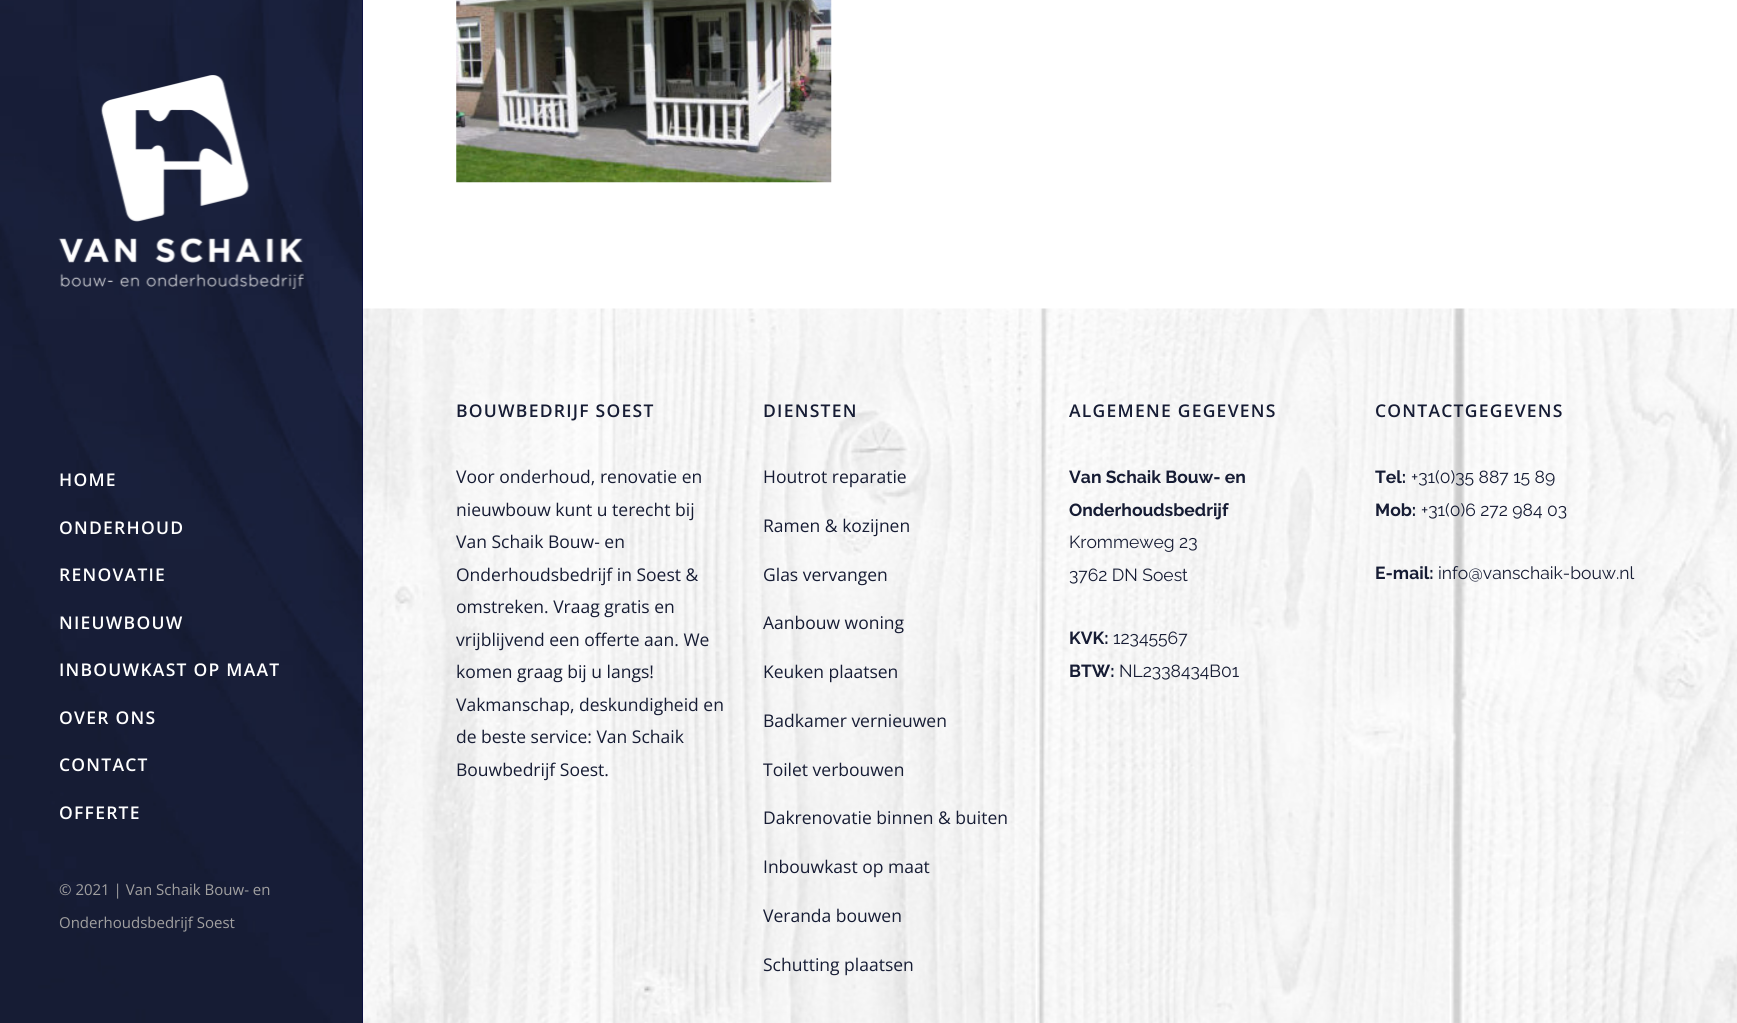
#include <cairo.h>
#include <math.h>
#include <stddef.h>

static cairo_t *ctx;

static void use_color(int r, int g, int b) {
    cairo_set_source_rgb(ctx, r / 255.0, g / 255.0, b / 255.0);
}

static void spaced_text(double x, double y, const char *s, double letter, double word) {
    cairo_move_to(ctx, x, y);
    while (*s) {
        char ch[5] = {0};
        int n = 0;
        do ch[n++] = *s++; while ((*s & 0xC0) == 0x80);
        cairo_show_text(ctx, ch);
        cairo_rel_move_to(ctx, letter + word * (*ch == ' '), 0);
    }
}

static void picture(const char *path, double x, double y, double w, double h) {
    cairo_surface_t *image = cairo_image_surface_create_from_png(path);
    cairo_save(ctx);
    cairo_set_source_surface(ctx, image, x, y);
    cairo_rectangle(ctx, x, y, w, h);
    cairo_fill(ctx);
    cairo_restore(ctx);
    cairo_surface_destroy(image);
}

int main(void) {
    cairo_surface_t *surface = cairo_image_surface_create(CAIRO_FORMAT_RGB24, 1737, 1023);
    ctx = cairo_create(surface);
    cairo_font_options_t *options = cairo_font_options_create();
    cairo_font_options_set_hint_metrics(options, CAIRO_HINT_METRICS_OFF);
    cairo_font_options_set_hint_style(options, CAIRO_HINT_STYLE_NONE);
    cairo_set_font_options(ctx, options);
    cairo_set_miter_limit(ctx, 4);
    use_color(255, 255, 255);
    cairo_paint(ctx);
    picture("img1.png", 456, 0, 376, 183);
    use_color(0, 0, 75);
    cairo_rectangle(ctx, 362, 0, 1, 1023);
    cairo_fill(ctx);
    picture("img2.png", 0, 0, 363, 1023);
    picture("img3.png", 58, 75, 246, 214);
    cairo_select_font_face(ctx, "Open Sans SemiBold", CAIRO_FONT_SLANT_NORMAL, CAIRO_FONT_WEIGHT_NORMAL);
    cairo_set_font_size(ctx, 17.5);
    use_color(255, 255, 255);
    spaced_text(59, 486, "HOME", 1.25, 0);
    spaced_text(59, 534, "ONDERHOUD", 1.25, 0);
    spaced_text(59, 581, "RENOVATIE", 1.25, 0);
    spaced_text(59, 629, "NIEUWBOUW", 1.25, 0);
    spaced_text(59, 676, "INBOUWKAST OP MAAT", 1.25, 0);
    spaced_text(59, 724, "OVER ONS", 1.25, 0);
    spaced_text(59, 771, "CONTACT", 1.25, 0);
    spaced_text(59, 819, "OFFERTE", 1.25, 0);
    cairo_select_font_face(ctx, "Open Sans", CAIRO_FONT_SLANT_NORMAL, CAIRO_FONT_WEIGHT_NORMAL);
    cairo_set_font_size(ctx, 15);
    use_color(161, 160, 160);
    cairo_move_to(ctx, 59, 895);
    cairo_show_text(ctx, "© 2021 | Van Schaik Bouw- en");
    cairo_move_to(ctx, 59, 928);
    cairo_show_text(ctx, "Onderhoudsbedrijf Soest");
    picture("img4.png", 363, 308, 1374, 715);
    cairo_select_font_face(ctx, "Open Sans SemiBold", CAIRO_FONT_SLANT_NORMAL, CAIRO_FONT_WEIGHT_NORMAL);
    cairo_set_font_size(ctx, 17.5);
    use_color(22, 28, 52);
    spaced_text(456, 417, "BOUWBEDRIJF SOEST", 1.25, 0);
    cairo_select_font_face(ctx, "Open Sans", CAIRO_FONT_SLANT_NORMAL, CAIRO_FONT_WEIGHT_NORMAL);
    cairo_move_to(ctx, 456, 483);
    cairo_show_text(ctx, "Voor onderhoud, renovatie en");
    cairo_move_to(ctx, 456, 516);
    cairo_show_text(ctx, "nieuwbouw kunt u terecht bij");
    cairo_move_to(ctx, 456, 548);
    cairo_show_text(ctx, "Van Schaik Bouw- en");
    cairo_move_to(ctx, 456, 581);
    cairo_show_text(ctx, "Onderhoudsbedrijf in Soest &");
    cairo_move_to(ctx, 456, 613);
    cairo_show_text(ctx, "omstreken. Vraag gratis en");
    cairo_move_to(ctx, 456, 646);
    cairo_show_text(ctx, "vrijblijvend een offerte aan. We");
    cairo_move_to(ctx, 456, 678);
    cairo_show_text(ctx, "komen graag bij u langs!");
    cairo_move_to(ctx, 456, 711);
    cairo_show_text(ctx, "Vakmanschap, deskundigheid en");
    cairo_move_to(ctx, 456, 743);
    cairo_show_text(ctx, "de beste service: Van Schaik");
    cairo_move_to(ctx, 456, 776);
    cairo_show_text(ctx, "Bouwbedrijf Soest.");
    cairo_select_font_face(ctx, "Open Sans SemiBold", CAIRO_FONT_SLANT_NORMAL, CAIRO_FONT_WEIGHT_NORMAL);
    spaced_text(763, 417, "DIENSTEN", 1.25, 0);
    cairo_select_font_face(ctx, "Open Sans", CAIRO_FONT_SLANT_NORMAL, CAIRO_FONT_WEIGHT_NORMAL);
    cairo_move_to(ctx, 763, 483);
    cairo_show_text(ctx, "Houtrot reparatie");
    cairo_move_to(ctx, 763, 532);
    cairo_show_text(ctx, "Ramen & kozijnen");
    cairo_move_to(ctx, 763, 581);
    cairo_show_text(ctx, "Glas vervangen");
    cairo_move_to(ctx, 763, 629);
    cairo_show_text(ctx, "Aanbouw woning");
    cairo_move_to(ctx, 763, 678);
    cairo_show_text(ctx, "Keuken plaatsen");
    cairo_move_to(ctx, 763, 727);
    cairo_show_text(ctx, "Badkamer vernieuwen");
    cairo_move_to(ctx, 763, 776);
    cairo_show_text(ctx, "Toilet verbouwen");
    cairo_move_to(ctx, 763, 824);
    cairo_show_text(ctx, "Dakrenovatie binnen & buiten");
    cairo_move_to(ctx, 763, 873);
    cairo_show_text(ctx, "Inbouwkast op maat");
    cairo_move_to(ctx, 763, 922);
    cairo_show_text(ctx, "Veranda bouwen");
    cairo_move_to(ctx, 763, 971);
    cairo_show_text(ctx, "Schutting plaatsen");
    cairo_select_font_face(ctx, "Open Sans SemiBold", CAIRO_FONT_SLANT_NORMAL, CAIRO_FONT_WEIGHT_NORMAL);
    spaced_text(1069, 417, "ALGEMENE GEGEVENS", 1.25, 0);
    cairo_select_font_face(ctx, "Raleway", CAIRO_FONT_SLANT_NORMAL, CAIRO_FONT_WEIGHT_BOLD);
    cairo_move_to(ctx, 1069, 483);
    cairo_show_text(ctx, "Van Schaik Bouw- en");
    cairo_move_to(ctx, 1069, 516);
    cairo_show_text(ctx, "Onderhoudsbedrijf");
    cairo_select_font_face(ctx, "Raleway", CAIRO_FONT_SLANT_NORMAL, CAIRO_FONT_WEIGHT_NORMAL);
    cairo_move_to(ctx, 1069, 548);
    cairo_show_text(ctx, "Krommeweg 23");
    cairo_move_to(ctx, 1069, 581);
    cairo_show_text(ctx, "3762 DN Soest");
    cairo_select_font_face(ctx, "Raleway", CAIRO_FONT_SLANT_NORMAL, CAIRO_FONT_WEIGHT_BOLD);
    cairo_move_to(ctx, 1069, 644);
    cairo_show_text(ctx, "KVK:");
    cairo_select_font_face(ctx, "Raleway", CAIRO_FONT_SLANT_NORMAL, CAIRO_FONT_WEIGHT_NORMAL);
    cairo_move_to(ctx, 1113, 644);
    cairo_show_text(ctx, "12345567");
    cairo_select_font_face(ctx, "Raleway", CAIRO_FONT_SLANT_NORMAL, CAIRO_FONT_WEIGHT_BOLD);
    cairo_move_to(ctx, 1069, 677);
    cairo_show_text(ctx, "BTW:");
    cairo_select_font_face(ctx, "Raleway", CAIRO_FONT_SLANT_NORMAL, CAIRO_FONT_WEIGHT_NORMAL);
    cairo_move_to(ctx, 1119, 677);
    cairo_show_text(ctx, "NL2338434B01");
    cairo_select_font_face(ctx, "Open Sans SemiBold", CAIRO_FONT_SLANT_NORMAL, CAIRO_FONT_WEIGHT_NORMAL);
    spaced_text(1375, 417, "CONTACTGEGEVENS", 1.25, 0);
    cairo_select_font_face(ctx, "Raleway", CAIRO_FONT_SLANT_NORMAL, CAIRO_FONT_WEIGHT_BOLD);
    cairo_move_to(ctx, 1375, 483);
    cairo_show_text(ctx, "Tel:");
    cairo_select_font_face(ctx, "Raleway", CAIRO_FONT_SLANT_NORMAL, CAIRO_FONT_WEIGHT_NORMAL);
    cairo_move_to(ctx, 1411, 483);
    cairo_show_text(ctx, "+31(0)35 887 15 89");
    cairo_select_font_face(ctx, "Raleway", CAIRO_FONT_SLANT_NORMAL, CAIRO_FONT_WEIGHT_BOLD);
    cairo_move_to(ctx, 1375, 516);
    cairo_show_text(ctx, "Mob:");
    cairo_select_font_face(ctx, "Raleway", CAIRO_FONT_SLANT_NORMAL, CAIRO_FONT_WEIGHT_NORMAL);
    cairo_move_to(ctx, 1421, 516);
    cairo_show_text(ctx, "+31(0)6 272 984 03");
    cairo_select_font_face(ctx, "Raleway", CAIRO_FONT_SLANT_NORMAL, CAIRO_FONT_WEIGHT_BOLD);
    cairo_move_to(ctx, 1375, 579);
    cairo_show_text(ctx, "E-mail:");
    cairo_select_font_face(ctx, "Raleway", CAIRO_FONT_SLANT_NORMAL, CAIRO_FONT_WEIGHT_NORMAL);
    cairo_move_to(ctx, 1438, 579);
    cairo_show_text(ctx, "info@vanschaik-bouw.nl");
    cairo_surface_write_to_png(surface, "result.png");
    cairo_font_options_destroy(options);
    cairo_destroy(ctx);
    cairo_surface_destroy(surface);
    return 0;
}
